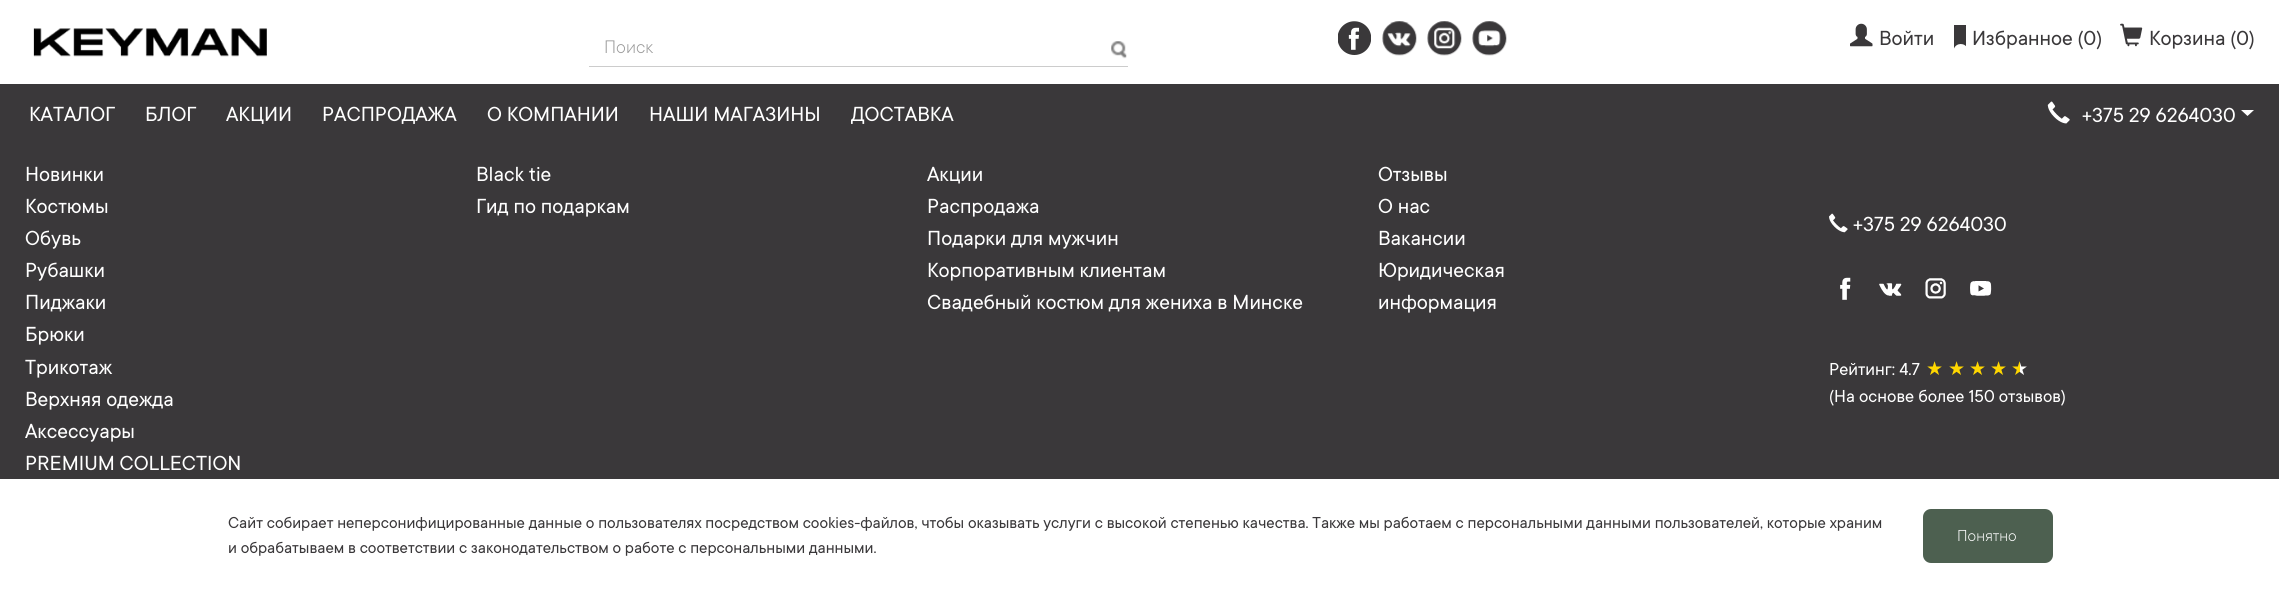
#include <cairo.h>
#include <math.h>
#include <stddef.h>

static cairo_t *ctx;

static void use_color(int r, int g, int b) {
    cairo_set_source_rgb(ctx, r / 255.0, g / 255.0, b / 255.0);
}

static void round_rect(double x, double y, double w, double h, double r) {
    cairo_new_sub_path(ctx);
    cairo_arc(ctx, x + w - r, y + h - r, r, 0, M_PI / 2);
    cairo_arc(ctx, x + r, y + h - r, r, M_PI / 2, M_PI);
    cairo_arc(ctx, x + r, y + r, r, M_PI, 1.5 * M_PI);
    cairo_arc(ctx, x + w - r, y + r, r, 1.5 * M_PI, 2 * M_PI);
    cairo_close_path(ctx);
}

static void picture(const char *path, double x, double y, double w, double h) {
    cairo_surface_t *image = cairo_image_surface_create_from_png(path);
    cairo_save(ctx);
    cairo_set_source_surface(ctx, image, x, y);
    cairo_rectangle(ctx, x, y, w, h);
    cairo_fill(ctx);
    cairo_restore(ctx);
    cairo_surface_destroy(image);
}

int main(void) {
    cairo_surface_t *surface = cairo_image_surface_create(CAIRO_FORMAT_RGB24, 2279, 592);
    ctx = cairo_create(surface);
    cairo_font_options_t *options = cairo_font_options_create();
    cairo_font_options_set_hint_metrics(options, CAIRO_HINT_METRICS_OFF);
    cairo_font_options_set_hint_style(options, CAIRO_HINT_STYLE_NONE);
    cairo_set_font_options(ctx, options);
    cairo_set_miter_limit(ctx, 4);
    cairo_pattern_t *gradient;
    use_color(58, 56, 58);
    cairo_paint(ctx);
    use_color(255, 255, 255);
    cairo_rectangle(ctx, 0, 0, 2279, 84);
    cairo_fill(ctx);
    picture("img1.png", 33, 28, 234, 29);
    use_color(204, 204, 204);
    cairo_rectangle(ctx, 589, 66, 539, 1);
    cairo_fill(ctx);
    cairo_select_font_face(ctx, "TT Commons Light", CAIRO_FONT_SLANT_NORMAL, CAIRO_FONT_WEIGHT_NORMAL);
    cairo_set_font_size(ctx, 20);
    use_color(153, 153, 153);
    cairo_move_to(ctx, 604, 53);
    cairo_show_text(ctx, "Поиск");
    picture("img2.png", 1111, 41, 16, 18);
    picture("img3.png", 1338, 21, 33, 34);
    picture("img4.png", 1382, 21, 35, 35);
    picture("img5.png", 1427, 21, 35, 35);
    picture("img6.png", 1472, 21, 35, 35);
    picture("img7.png", 1850, 23, 23, 24);
    cairo_select_font_face(ctx, "TT Commons", CAIRO_FONT_SLANT_NORMAL, CAIRO_FONT_WEIGHT_NORMAL);
    cairo_set_font_size(ctx, 22.5);
    use_color(58, 56, 58);
    cairo_move_to(ctx, 1879, 45);
    cairo_show_text(ctx, "Войти");
    cairo_move_to(ctx, 1972, 45);
    cairo_show_text(ctx, "Избранное (0)");
    cairo_save(ctx);
    cairo_rectangle(ctx, 1954, 25, 12, 24);
    cairo_clip(ctx);
    cairo_new_path(ctx);
    cairo_move_to(ctx, 1967.5, 25);
    cairo_line_to(ctx, 1954, 25);
    cairo_line_to(ctx, 1954, 48.5);
    cairo_curve_to(ctx, 1956.5, 42.5, 1965, 42.5, 1967.5, 48.5);
    cairo_close_path(ctx);
    cairo_fill(ctx);
    cairo_restore(ctx);
    picture("img8.png", 2120, 23, 23, 24);
    cairo_move_to(ctx, 2149, 45);
    cairo_show_text(ctx, "Корзина (0)");
    use_color(255, 255, 255);
    cairo_move_to(ctx, 29, 121);
    cairo_show_text(ctx, "КАТАЛОГ");
    cairo_move_to(ctx, 145, 121);
    cairo_show_text(ctx, "БЛОГ");
    cairo_move_to(ctx, 226, 121);
    cairo_show_text(ctx, "АКЦИИ");
    cairo_move_to(ctx, 322, 121);
    cairo_show_text(ctx, "РАСПРОДАЖА");
    cairo_move_to(ctx, 487, 121);
    cairo_show_text(ctx, "О КОМПАНИИ");
    cairo_move_to(ctx, 649, 121);
    cairo_show_text(ctx, "НАШИ МАГАЗИНЫ");
    cairo_move_to(ctx, 851, 121);
    cairo_show_text(ctx, "ДОСТАВКА");
    picture("img9.png", 2047, 101, 23, 23);
    cairo_move_to(ctx, 2082, 122);
    cairo_show_text(ctx, "+375 29 6264030");
    cairo_new_path(ctx);
    cairo_move_to(ctx, 2241, 110);
    cairo_line_to(ctx, 2254, 110);
    cairo_line_to(ctx, 2247.5, 116);
    cairo_close_path(ctx);
    cairo_fill(ctx);
    cairo_move_to(ctx, 25, 181);
    cairo_show_text(ctx, "Новинки");
    cairo_move_to(ctx, 25, 213);
    cairo_show_text(ctx, "Костюмы");
    cairo_move_to(ctx, 25, 245);
    cairo_show_text(ctx, "Обувь");
    cairo_move_to(ctx, 25, 277);
    cairo_show_text(ctx, "Рубашки");
    cairo_move_to(ctx, 25, 309);
    cairo_show_text(ctx, "Пиджаки");
    cairo_move_to(ctx, 25, 341);
    cairo_show_text(ctx, "Брюки");
    cairo_move_to(ctx, 25, 374);
    cairo_show_text(ctx, "Трикотаж");
    cairo_move_to(ctx, 25, 406);
    cairo_show_text(ctx, "Верхняя одежда");
    cairo_move_to(ctx, 25, 438);
    cairo_show_text(ctx, "Аксессуары");
    cairo_move_to(ctx, 25, 470);
    cairo_show_text(ctx, "PREMIUM COLLECTION");
    cairo_move_to(ctx, 476, 181);
    cairo_show_text(ctx, "Black tie");
    cairo_move_to(ctx, 476, 213);
    cairo_show_text(ctx, "Гид по подаркам");
    cairo_move_to(ctx, 927, 181);
    cairo_show_text(ctx, "Акции");
    cairo_move_to(ctx, 927, 213);
    cairo_show_text(ctx, "Распродажа");
    cairo_move_to(ctx, 927, 245);
    cairo_show_text(ctx, "Подарки для мужчин");
    cairo_move_to(ctx, 927, 277);
    cairo_show_text(ctx, "Корпоративным клиентам");
    cairo_move_to(ctx, 927, 309);
    cairo_show_text(ctx, "Свадебный костюм для жениха в Минске");
    cairo_move_to(ctx, 1378, 181);
    cairo_show_text(ctx, "Отзывы");
    cairo_move_to(ctx, 1378, 213);
    cairo_show_text(ctx, "О нас");
    cairo_move_to(ctx, 1378, 245);
    cairo_show_text(ctx, "Вакансии");
    cairo_move_to(ctx, 1378, 277);
    cairo_show_text(ctx, "Юридическая");
    cairo_move_to(ctx, 1378, 309);
    cairo_show_text(ctx, "информация");
    picture("img10.png", 1829, 213, 19, 20);
    cairo_move_to(ctx, 1853, 231);
    cairo_show_text(ctx, "+375 29 6264030");
    picture("img11.png", 1840, 277, 11, 23);
    picture("img12.png", 1879, 283, 23, 13);
    picture("img13.png", 1925, 278, 21, 21);
    picture("img14.png", 1970, 281, 22, 15);
    cairo_set_font_size(ctx, 19.1);
    cairo_move_to(ctx, 1829, 375);
    cairo_show_text(ctx, "Рейтинг: 4.7");
    cairo_select_font_face(ctx, "DejaVu Sans", CAIRO_FONT_SLANT_NORMAL, CAIRO_FONT_WEIGHT_NORMAL);
    use_color(255, 215, 0);
    cairo_move_to(ctx, 1926, 375);
    cairo_show_text(ctx, "★");
    cairo_move_to(ctx, 1948, 375);
    cairo_show_text(ctx, "★");
    cairo_move_to(ctx, 1969, 375);
    cairo_show_text(ctx, "★");
    cairo_move_to(ctx, 1990, 375);
    cairo_show_text(ctx, "★");
    gradient = cairo_pattern_create_linear(2011, 368, 2029, 368);
    cairo_pattern_add_color_stop_rgba(gradient, 0.5, 1, 0.843, 0, 1);
    cairo_pattern_add_color_stop_rgba(gradient, 0.5, 1, 1, 1, 1);
    cairo_set_source(ctx, gradient);
    cairo_pattern_destroy(gradient);
    cairo_move_to(ctx, 2011, 375);
    cairo_show_text(ctx, "★");
    cairo_select_font_face(ctx, "TT Commons", CAIRO_FONT_SLANT_NORMAL, CAIRO_FONT_WEIGHT_NORMAL);
    use_color(255, 255, 255);
    cairo_move_to(ctx, 1829, 402);
    cairo_show_text(ctx, "(На основе более 150 отзывов)");
    cairo_rectangle(ctx, 0, 479, 2279, 113);
    cairo_fill(ctx);
    cairo_set_font_size(ctx, 17.5);
    use_color(58, 56, 58);
    cairo_move_to(ctx, 228, 528);
    cairo_show_text(ctx, "Сайт собирает неперсонифицированные данные о пользователях посредством cookies-файлов, чтобы оказывать услуги с высокой степенью качества. Также мы работаем с персональными данными пользователей, которые храним");
    cairo_move_to(ctx, 228, 553);
    cairo_show_text(ctx, "и обрабатываем в соответствии с законодательством о работе с персональными данными.");
    use_color(77, 96, 80);
    round_rect(1923, 509, 130, 54, 8);
    cairo_fill(ctx);
    cairo_select_font_face(ctx, "TT Commons Light", CAIRO_FONT_SLANT_NORMAL, CAIRO_FONT_WEIGHT_NORMAL);
    use_color(255, 255, 255);
    cairo_move_to(ctx, 1957, 541);
    cairo_show_text(ctx, "Понятно");
    cairo_surface_write_to_png(surface, "result.png");
    cairo_font_options_destroy(options);
    cairo_destroy(ctx);
    cairo_surface_destroy(surface);
    return 0;
}
